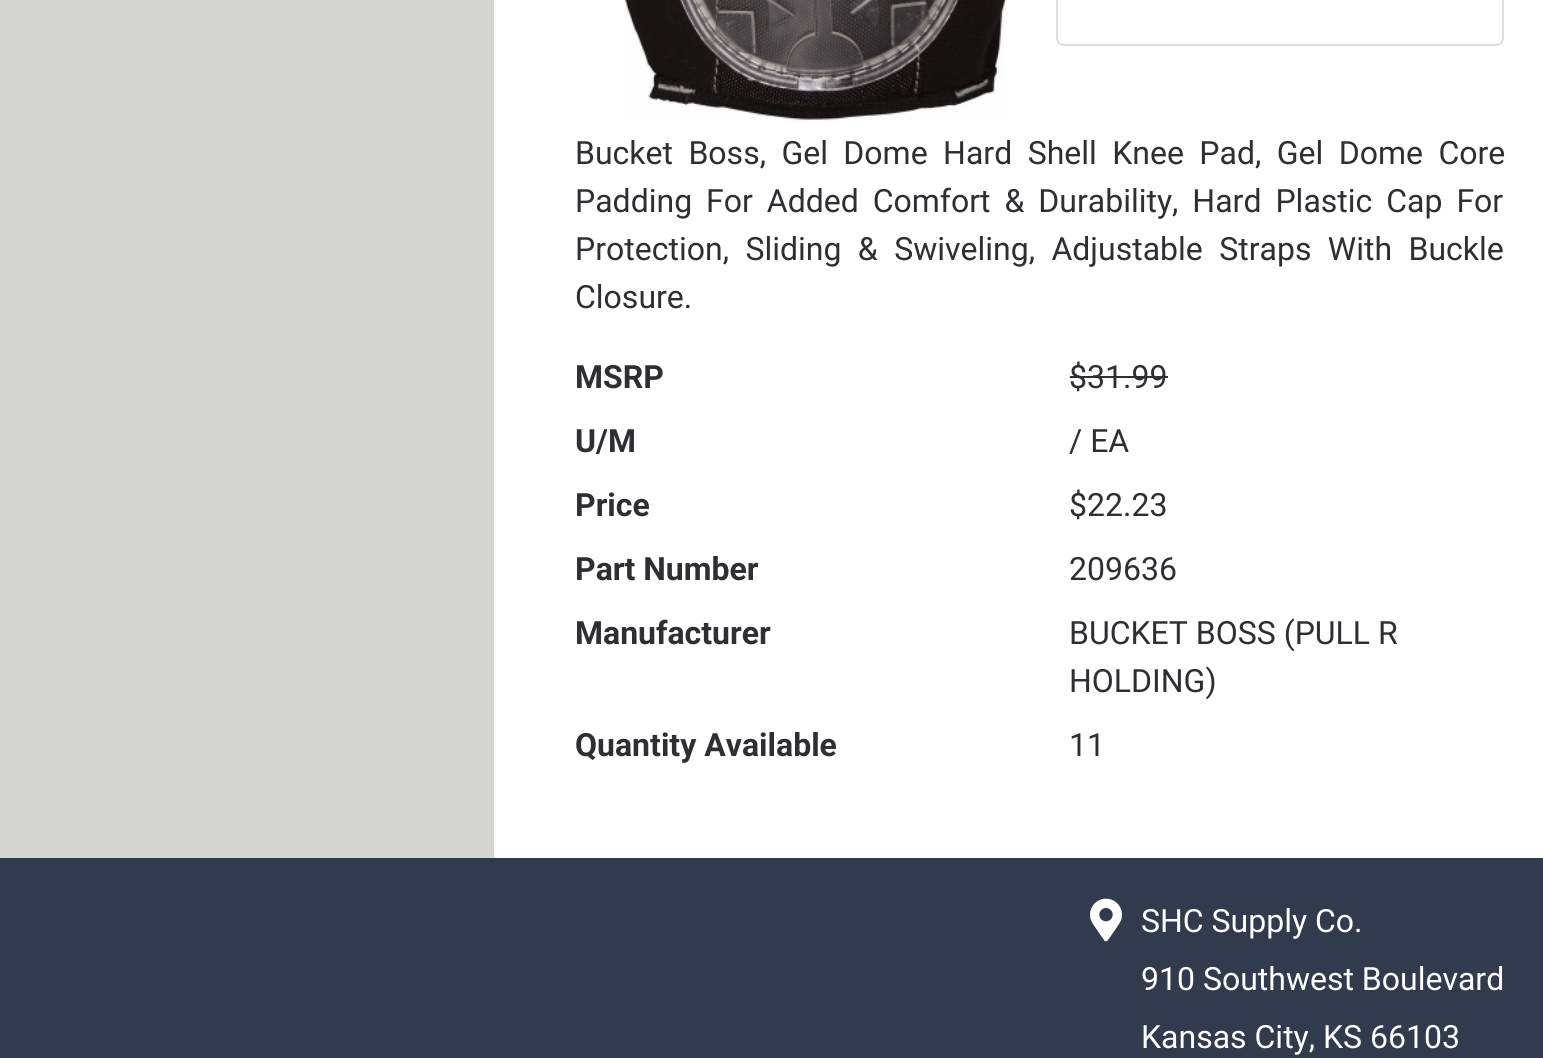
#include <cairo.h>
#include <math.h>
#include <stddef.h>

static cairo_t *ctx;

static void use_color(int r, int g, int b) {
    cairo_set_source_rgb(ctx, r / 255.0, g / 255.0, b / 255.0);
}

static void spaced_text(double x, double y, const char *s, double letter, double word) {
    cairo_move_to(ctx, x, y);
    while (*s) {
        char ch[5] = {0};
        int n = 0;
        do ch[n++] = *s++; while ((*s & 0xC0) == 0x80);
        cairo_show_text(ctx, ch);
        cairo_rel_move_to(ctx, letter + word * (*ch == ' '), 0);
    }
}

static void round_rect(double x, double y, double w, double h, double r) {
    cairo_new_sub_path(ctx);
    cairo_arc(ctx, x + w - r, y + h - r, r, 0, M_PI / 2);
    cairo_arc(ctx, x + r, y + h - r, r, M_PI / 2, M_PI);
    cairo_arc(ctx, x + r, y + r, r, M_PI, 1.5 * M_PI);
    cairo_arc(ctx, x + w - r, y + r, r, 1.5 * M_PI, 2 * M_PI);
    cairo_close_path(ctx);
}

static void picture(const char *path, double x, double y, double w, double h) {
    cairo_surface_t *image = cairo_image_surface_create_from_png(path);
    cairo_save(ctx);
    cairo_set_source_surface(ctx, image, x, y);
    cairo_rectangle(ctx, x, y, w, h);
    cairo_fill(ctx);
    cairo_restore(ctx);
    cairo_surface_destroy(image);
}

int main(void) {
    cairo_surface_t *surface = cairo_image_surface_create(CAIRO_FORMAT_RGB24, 1543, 1058);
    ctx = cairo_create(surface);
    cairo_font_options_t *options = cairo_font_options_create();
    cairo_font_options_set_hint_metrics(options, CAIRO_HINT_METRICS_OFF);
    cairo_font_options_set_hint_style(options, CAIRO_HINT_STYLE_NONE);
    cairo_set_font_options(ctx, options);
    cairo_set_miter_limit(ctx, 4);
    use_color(255, 255, 255);
    cairo_paint(ctx);
    use_color(213, 214, 210);
    cairo_rectangle(ctx, 0, 0, 494, 858);
    cairo_fill(ctx);
    picture("img1.png", 624, 0, 383, 121);
    round_rect(1057, -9, 446, 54, 7);
    use_color(223, 223, 223);
    cairo_stroke(ctx);
    cairo_select_font_face(ctx, "Roboto", CAIRO_FONT_SLANT_NORMAL, CAIRO_FONT_WEIGHT_NORMAL);
    cairo_set_font_size(ctx, 32);
    use_color(47, 46, 51);
    spaced_text(575, 164, "Bucket Boss, Gel Dome Hard Shell Knee Pad, Gel Dome Core", 0, 7.5);
    spaced_text(575, 212, "Padding For Added Comfort & Durability, Hard Plastic Cap For", 0, 6);
    spaced_text(575, 260, "Protection, Sliding & Swiveling, Adjustable Straps With Buckle", 0, 8.5);
    cairo_move_to(ctx, 575, 308);
    cairo_show_text(ctx, "Closure.");
    cairo_select_font_face(ctx, "Roboto", CAIRO_FONT_SLANT_NORMAL, CAIRO_FONT_WEIGHT_BOLD);
    cairo_move_to(ctx, 575, 388);
    cairo_show_text(ctx, "MSRP");
    cairo_select_font_face(ctx, "Roboto", CAIRO_FONT_SLANT_NORMAL, CAIRO_FONT_WEIGHT_NORMAL);
    cairo_move_to(ctx, 1069, 388);
    cairo_show_text(ctx, "$31.99");
    cairo_rectangle(ctx, 1070, 376, 98, 2);
    cairo_fill(ctx);
    cairo_select_font_face(ctx, "Roboto", CAIRO_FONT_SLANT_NORMAL, CAIRO_FONT_WEIGHT_BOLD);
    cairo_move_to(ctx, 575, 452);
    cairo_show_text(ctx, "U/M");
    cairo_select_font_face(ctx, "Roboto", CAIRO_FONT_SLANT_NORMAL, CAIRO_FONT_WEIGHT_NORMAL);
    cairo_move_to(ctx, 1069, 452);
    cairo_show_text(ctx, "/ EA");
    cairo_select_font_face(ctx, "Roboto", CAIRO_FONT_SLANT_NORMAL, CAIRO_FONT_WEIGHT_BOLD);
    cairo_move_to(ctx, 575, 516);
    cairo_show_text(ctx, "Price");
    cairo_select_font_face(ctx, "Roboto", CAIRO_FONT_SLANT_NORMAL, CAIRO_FONT_WEIGHT_NORMAL);
    cairo_move_to(ctx, 1069, 516);
    cairo_show_text(ctx, "$22.23");
    cairo_select_font_face(ctx, "Roboto", CAIRO_FONT_SLANT_NORMAL, CAIRO_FONT_WEIGHT_BOLD);
    cairo_move_to(ctx, 575, 580);
    cairo_show_text(ctx, "Part Number");
    cairo_select_font_face(ctx, "Roboto", CAIRO_FONT_SLANT_NORMAL, CAIRO_FONT_WEIGHT_NORMAL);
    cairo_move_to(ctx, 1069, 580);
    cairo_show_text(ctx, "209636");
    cairo_select_font_face(ctx, "Roboto", CAIRO_FONT_SLANT_NORMAL, CAIRO_FONT_WEIGHT_BOLD);
    cairo_move_to(ctx, 575, 644);
    cairo_show_text(ctx, "Manufacturer");
    cairo_select_font_face(ctx, "Roboto", CAIRO_FONT_SLANT_NORMAL, CAIRO_FONT_WEIGHT_NORMAL);
    cairo_move_to(ctx, 1069, 644);
    cairo_show_text(ctx, "BUCKET BOSS (PULL R");
    cairo_move_to(ctx, 1069, 692);
    cairo_show_text(ctx, "HOLDING)");
    cairo_select_font_face(ctx, "Roboto", CAIRO_FONT_SLANT_NORMAL, CAIRO_FONT_WEIGHT_BOLD);
    cairo_move_to(ctx, 575, 756);
    cairo_show_text(ctx, "Quantity Available");
    cairo_select_font_face(ctx, "Roboto", CAIRO_FONT_SLANT_NORMAL, CAIRO_FONT_WEIGHT_NORMAL);
    cairo_move_to(ctx, 1069, 756);
    cairo_show_text(ctx, "11");
    use_color(50, 58, 77);
    cairo_rectangle(ctx, 0, 858, 1543, 200);
    cairo_fill(ctx);
    picture("img2.png", 1090, 898, 32, 44);
    use_color(255, 255, 255);
    cairo_move_to(ctx, 1141, 932);
    cairo_show_text(ctx, "SHC Supply Co.");
    cairo_move_to(ctx, 1141, 990);
    cairo_show_text(ctx, "910 Southwest Boulevard");
    cairo_move_to(ctx, 1141, 1048);
    cairo_show_text(ctx, "Kansas City, KS 66103");
    cairo_surface_write_to_png(surface, "result.png");
    cairo_font_options_destroy(options);
    cairo_destroy(ctx);
    cairo_surface_destroy(surface);
    return 0;
}
